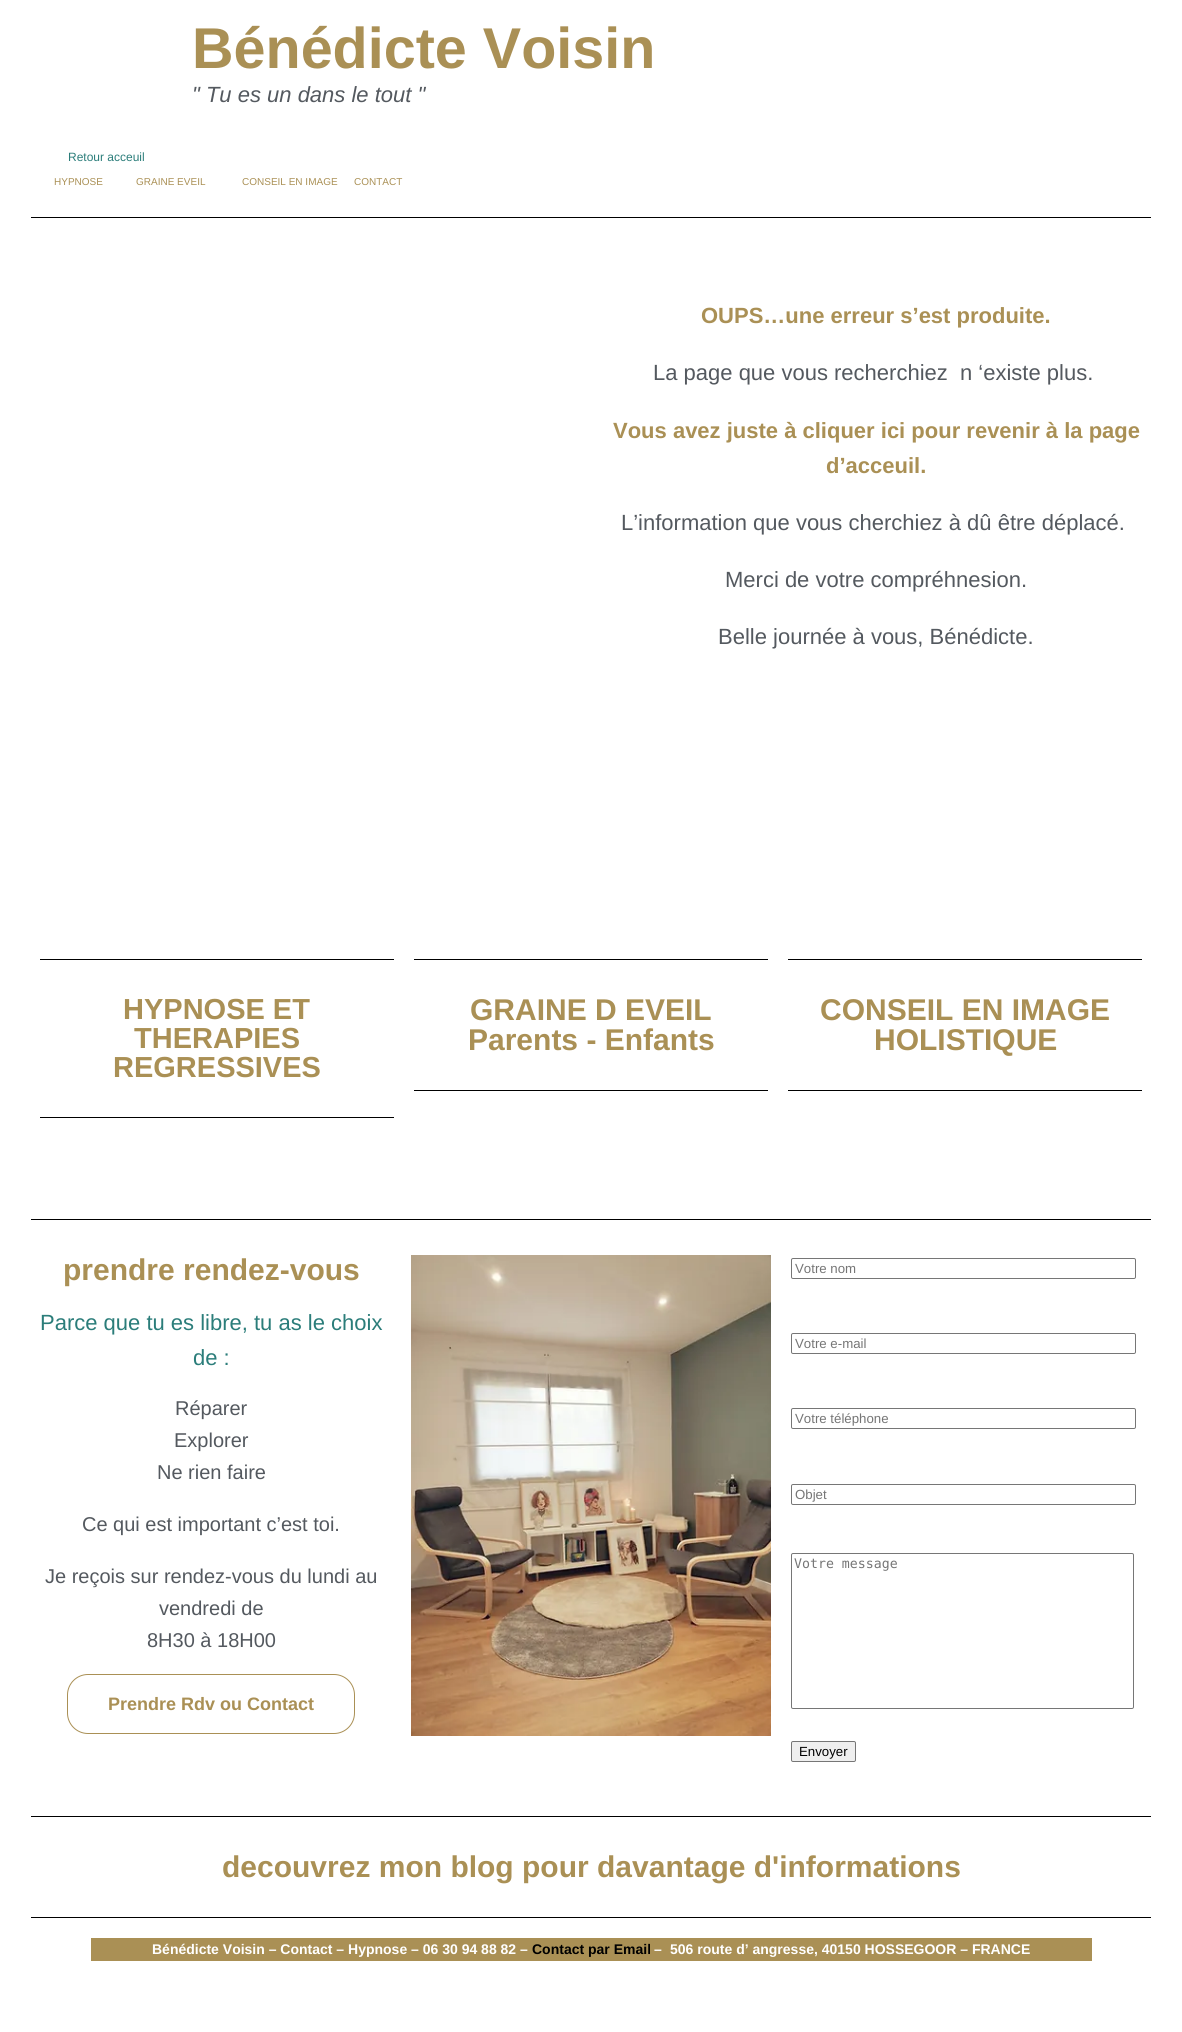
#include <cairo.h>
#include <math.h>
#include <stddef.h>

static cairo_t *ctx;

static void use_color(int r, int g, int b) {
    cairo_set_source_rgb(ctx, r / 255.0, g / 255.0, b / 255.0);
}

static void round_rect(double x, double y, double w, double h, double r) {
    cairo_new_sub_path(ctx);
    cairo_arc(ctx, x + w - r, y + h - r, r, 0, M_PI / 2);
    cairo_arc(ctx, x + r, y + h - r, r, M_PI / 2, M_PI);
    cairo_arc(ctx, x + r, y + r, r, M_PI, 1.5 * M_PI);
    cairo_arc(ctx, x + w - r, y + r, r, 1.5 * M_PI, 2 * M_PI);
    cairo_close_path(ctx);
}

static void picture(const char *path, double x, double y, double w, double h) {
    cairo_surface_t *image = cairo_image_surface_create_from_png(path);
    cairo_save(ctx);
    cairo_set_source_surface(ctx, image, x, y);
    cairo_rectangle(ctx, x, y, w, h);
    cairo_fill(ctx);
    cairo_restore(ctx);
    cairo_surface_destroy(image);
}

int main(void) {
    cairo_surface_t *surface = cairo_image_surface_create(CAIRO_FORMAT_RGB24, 1182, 2032);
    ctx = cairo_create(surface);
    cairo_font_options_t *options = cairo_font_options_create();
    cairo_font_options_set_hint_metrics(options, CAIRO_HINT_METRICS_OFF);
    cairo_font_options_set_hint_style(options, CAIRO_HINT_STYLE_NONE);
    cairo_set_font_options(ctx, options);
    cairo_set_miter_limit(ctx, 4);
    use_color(255, 255, 255);
    cairo_paint(ctx);
    cairo_select_font_face(ctx, "Liberation Sans", CAIRO_FONT_SLANT_NORMAL, CAIRO_FONT_WEIGHT_BOLD);
    cairo_set_font_size(ctx, 57.5);
    use_color(170, 144, 85);
    cairo_move_to(ctx, 192, 68);
    cairo_show_text(ctx, "Bénédicte Voisin");
    cairo_select_font_face(ctx, "Liberation Sans", CAIRO_FONT_SLANT_ITALIC, CAIRO_FONT_WEIGHT_NORMAL);
    cairo_set_font_size(ctx, 22);
    use_color(84, 89, 95);
    cairo_move_to(ctx, 192, 102);
    cairo_show_text(ctx, "\" Tu es un dans le tout \"");
    cairo_select_font_face(ctx, "Liberation Sans", CAIRO_FONT_SLANT_NORMAL, CAIRO_FONT_WEIGHT_NORMAL);
    cairo_set_font_size(ctx, 12);
    use_color(43, 125, 122);
    cairo_move_to(ctx, 68, 161);
    cairo_show_text(ctx, "Retour acceuil");
    cairo_set_font_size(ctx, 10);
    use_color(170, 144, 85);
    cairo_move_to(ctx, 54, 185);
    cairo_show_text(ctx, "HYPNOSE");
    cairo_move_to(ctx, 136, 185);
    cairo_show_text(ctx, "GRAINE EVEIL");
    cairo_move_to(ctx, 242, 185);
    cairo_show_text(ctx, "CONSEIL EN IMAGE");
    cairo_move_to(ctx, 354, 185);
    cairo_show_text(ctx, "CONTACT");
    use_color(0, 0, 0);
    cairo_rectangle(ctx, 31, 217, 1120, 1);
    cairo_fill(ctx);
    cairo_select_font_face(ctx, "Liberation Sans", CAIRO_FONT_SLANT_NORMAL, CAIRO_FONT_WEIGHT_BOLD);
    cairo_set_font_size(ctx, 22);
    use_color(170, 144, 85);
    cairo_move_to(ctx, 701, 323);
    cairo_show_text(ctx, "OUPS…une erreur s’est produite.");
    cairo_select_font_face(ctx, "Liberation Sans", CAIRO_FONT_SLANT_NORMAL, CAIRO_FONT_WEIGHT_NORMAL);
    use_color(84, 89, 95);
    cairo_move_to(ctx, 653, 380);
    cairo_show_text(ctx, "La page que vous recherchiez  n ‘existe plus.");
    cairo_select_font_face(ctx, "Liberation Sans", CAIRO_FONT_SLANT_NORMAL, CAIRO_FONT_WEIGHT_BOLD);
    use_color(170, 144, 85);
    cairo_move_to(ctx, 613, 438);
    cairo_show_text(ctx, "Vous avez juste à cliquer ici pour revenir à la page");
    cairo_move_to(ctx, 826, 473);
    cairo_show_text(ctx, "d’acceuil.");
    cairo_select_font_face(ctx, "Liberation Sans", CAIRO_FONT_SLANT_NORMAL, CAIRO_FONT_WEIGHT_NORMAL);
    use_color(84, 89, 95);
    cairo_move_to(ctx, 621, 530);
    cairo_show_text(ctx, "L’information que vous cherchiez à dû être déplacé.");
    cairo_move_to(ctx, 725, 587);
    cairo_show_text(ctx, "Merci de votre compréhnesion.");
    cairo_move_to(ctx, 718, 644);
    cairo_show_text(ctx, "Belle journée à vous, Bénédicte.");
    use_color(0, 0, 0);
    cairo_rectangle(ctx, 40, 959, 354, 1);
    cairo_fill(ctx);
    cairo_select_font_face(ctx, "Liberation Sans", CAIRO_FONT_SLANT_NORMAL, CAIRO_FONT_WEIGHT_BOLD);
    cairo_set_font_size(ctx, 29);
    use_color(170, 144, 85);
    cairo_move_to(ctx, 123, 1019);
    cairo_show_text(ctx, "HYPNOSE ET");
    cairo_move_to(ctx, 134, 1048);
    cairo_show_text(ctx, "THERAPIES");
    cairo_move_to(ctx, 113, 1077);
    cairo_show_text(ctx, "REGRESSIVES");
    use_color(0, 0, 0);
    cairo_rectangle(ctx, 40, 1117, 354, 1);
    cairo_fill(ctx);
    cairo_rectangle(ctx, 414, 959, 354, 1);
    cairo_fill(ctx);
    cairo_set_font_size(ctx, 30);
    use_color(170, 144, 85);
    cairo_move_to(ctx, 470, 1020);
    cairo_show_text(ctx, "GRAINE D EVEIL");
    cairo_move_to(ctx, 468, 1050);
    cairo_show_text(ctx, "Parents - Enfants");
    use_color(0, 0, 0);
    cairo_rectangle(ctx, 414, 1090, 354, 1);
    cairo_fill(ctx);
    cairo_rectangle(ctx, 788, 959, 354, 1);
    cairo_fill(ctx);
    use_color(170, 144, 85);
    cairo_move_to(ctx, 820, 1020);
    cairo_show_text(ctx, "CONSEIL EN IMAGE");
    cairo_move_to(ctx, 874, 1050);
    cairo_show_text(ctx, "HOLISTIQUE");
    use_color(0, 0, 0);
    cairo_rectangle(ctx, 788, 1090, 354, 1);
    cairo_fill(ctx);
    cairo_rectangle(ctx, 31, 1219, 1120, 1);
    cairo_fill(ctx);
    use_color(170, 144, 85);
    cairo_move_to(ctx, 63, 1280);
    cairo_show_text(ctx, "prendre rendez-vous");
    cairo_select_font_face(ctx, "Liberation Sans", CAIRO_FONT_SLANT_NORMAL, CAIRO_FONT_WEIGHT_NORMAL);
    cairo_set_font_size(ctx, 22);
    use_color(43, 125, 122);
    cairo_move_to(ctx, 40, 1330);
    cairo_show_text(ctx, "Parce que tu es libre, tu as le choix");
    cairo_move_to(ctx, 193, 1365);
    cairo_show_text(ctx, "de :");
    cairo_set_font_size(ctx, 20);
    use_color(84, 89, 95);
    cairo_move_to(ctx, 175, 1415);
    cairo_show_text(ctx, "Réparer");
    cairo_move_to(ctx, 174, 1447);
    cairo_show_text(ctx, "Explorer");
    cairo_move_to(ctx, 157, 1479);
    cairo_show_text(ctx, "Ne rien faire");
    cairo_move_to(ctx, 82, 1531);
    cairo_show_text(ctx, "Ce qui est important c’est toi.");
    cairo_move_to(ctx, 45, 1583);
    cairo_show_text(ctx, "Je reçois sur rendez-vous du lundi au");
    cairo_move_to(ctx, 159, 1615);
    cairo_show_text(ctx, "vendredi de");
    cairo_move_to(ctx, 147, 1647);
    cairo_show_text(ctx, "8H30 à 18H00");
    round_rect(67.5, 1674.5, 287, 59, 20.5);
    use_color(170, 144, 85);
    cairo_set_line_width(ctx, 1);
    cairo_stroke(ctx);
    cairo_select_font_face(ctx, "Liberation Sans", CAIRO_FONT_SLANT_NORMAL, CAIRO_FONT_WEIGHT_BOLD);
    cairo_set_font_size(ctx, 18);
    cairo_move_to(ctx, 108, 1710);
    cairo_show_text(ctx, "Prendre Rdv ou Contact");
    picture("img1.png", 411, 1255, 360, 481);
    round_rect(791.5, 1258.5, 344, 20, 1.5);
    use_color(118, 118, 118);
    cairo_stroke(ctx);
    cairo_select_font_face(ctx, "Liberation Sans", CAIRO_FONT_SLANT_NORMAL, CAIRO_FONT_WEIGHT_NORMAL);
    cairo_set_font_size(ctx, 13.25);
    use_color(117, 117, 117);
    cairo_move_to(ctx, 795, 1273);
    cairo_show_text(ctx, "Votre nom");
    round_rect(791.5, 1333.5, 344, 20, 1.5);
    use_color(118, 118, 118);
    cairo_stroke(ctx);
    use_color(117, 117, 117);
    cairo_move_to(ctx, 795, 1348);
    cairo_show_text(ctx, "Votre e-mail");
    round_rect(791.5, 1408.5, 344, 20, 1.5);
    use_color(118, 118, 118);
    cairo_stroke(ctx);
    use_color(117, 117, 117);
    cairo_move_to(ctx, 795, 1423);
    cairo_show_text(ctx, "Votre téléphone");
    round_rect(791.5, 1484.5, 344, 20, 1.5);
    use_color(118, 118, 118);
    cairo_stroke(ctx);
    use_color(117, 117, 117);
    cairo_move_to(ctx, 795, 1499);
    cairo_show_text(ctx, "Objet");
    round_rect(791.5, 1553.5, 342, 155, 1.5);
    use_color(118, 118, 118);
    cairo_stroke(ctx);
    cairo_select_font_face(ctx, "DejaVu Sans Mono", CAIRO_FONT_SLANT_NORMAL, CAIRO_FONT_WEIGHT_NORMAL);
    use_color(117, 117, 117);
    cairo_move_to(ctx, 794, 1568);
    cairo_show_text(ctx, "Votre message");
    use_color(239, 239, 239);
    round_rect(791.5, 1741.5, 64, 20, 1.5);
    cairo_fill_preserve(ctx);
    use_color(118, 118, 118);
    cairo_stroke(ctx);
    cairo_select_font_face(ctx, "Liberation Sans", CAIRO_FONT_SLANT_NORMAL, CAIRO_FONT_WEIGHT_NORMAL);
    use_color(0, 0, 0);
    cairo_move_to(ctx, 799, 1756);
    cairo_show_text(ctx, "Envoyer");
    cairo_rectangle(ctx, 31, 1816, 1120, 1);
    cairo_fill(ctx);
    cairo_select_font_face(ctx, "Liberation Sans", CAIRO_FONT_SLANT_NORMAL, CAIRO_FONT_WEIGHT_BOLD);
    cairo_set_font_size(ctx, 30);
    use_color(170, 144, 85);
    cairo_move_to(ctx, 222, 1877);
    cairo_show_text(ctx, "decouvrez mon blog pour davantage d'informations");
    use_color(0, 0, 0);
    cairo_rectangle(ctx, 31, 1917, 1120, 1);
    cairo_fill(ctx);
    use_color(170, 144, 85);
    cairo_rectangle(ctx, 91, 1938, 1001, 23);
    cairo_fill(ctx);
    cairo_set_font_size(ctx, 14);
    use_color(255, 255, 255);
    cairo_move_to(ctx, 152, 1954);
    cairo_show_text(ctx, "Bénédicte Voisin – Contact – Hypnose – 06 30 94 88 82 –");
    use_color(0, 0, 0);
    cairo_move_to(ctx, 532, 1954);
    cairo_show_text(ctx, "Contact par Email");
    use_color(255, 255, 255);
    cairo_move_to(ctx, 654, 1954);
    cairo_show_text(ctx, "–");
    cairo_move_to(ctx, 670, 1954);
    cairo_show_text(ctx, "506 route d’ angresse, 40150 HOSSEGOOR – FRANCE");
    cairo_surface_write_to_png(surface, "result.png");
    cairo_font_options_destroy(options);
    cairo_destroy(ctx);
    cairo_surface_destroy(surface);
    return 0;
}
